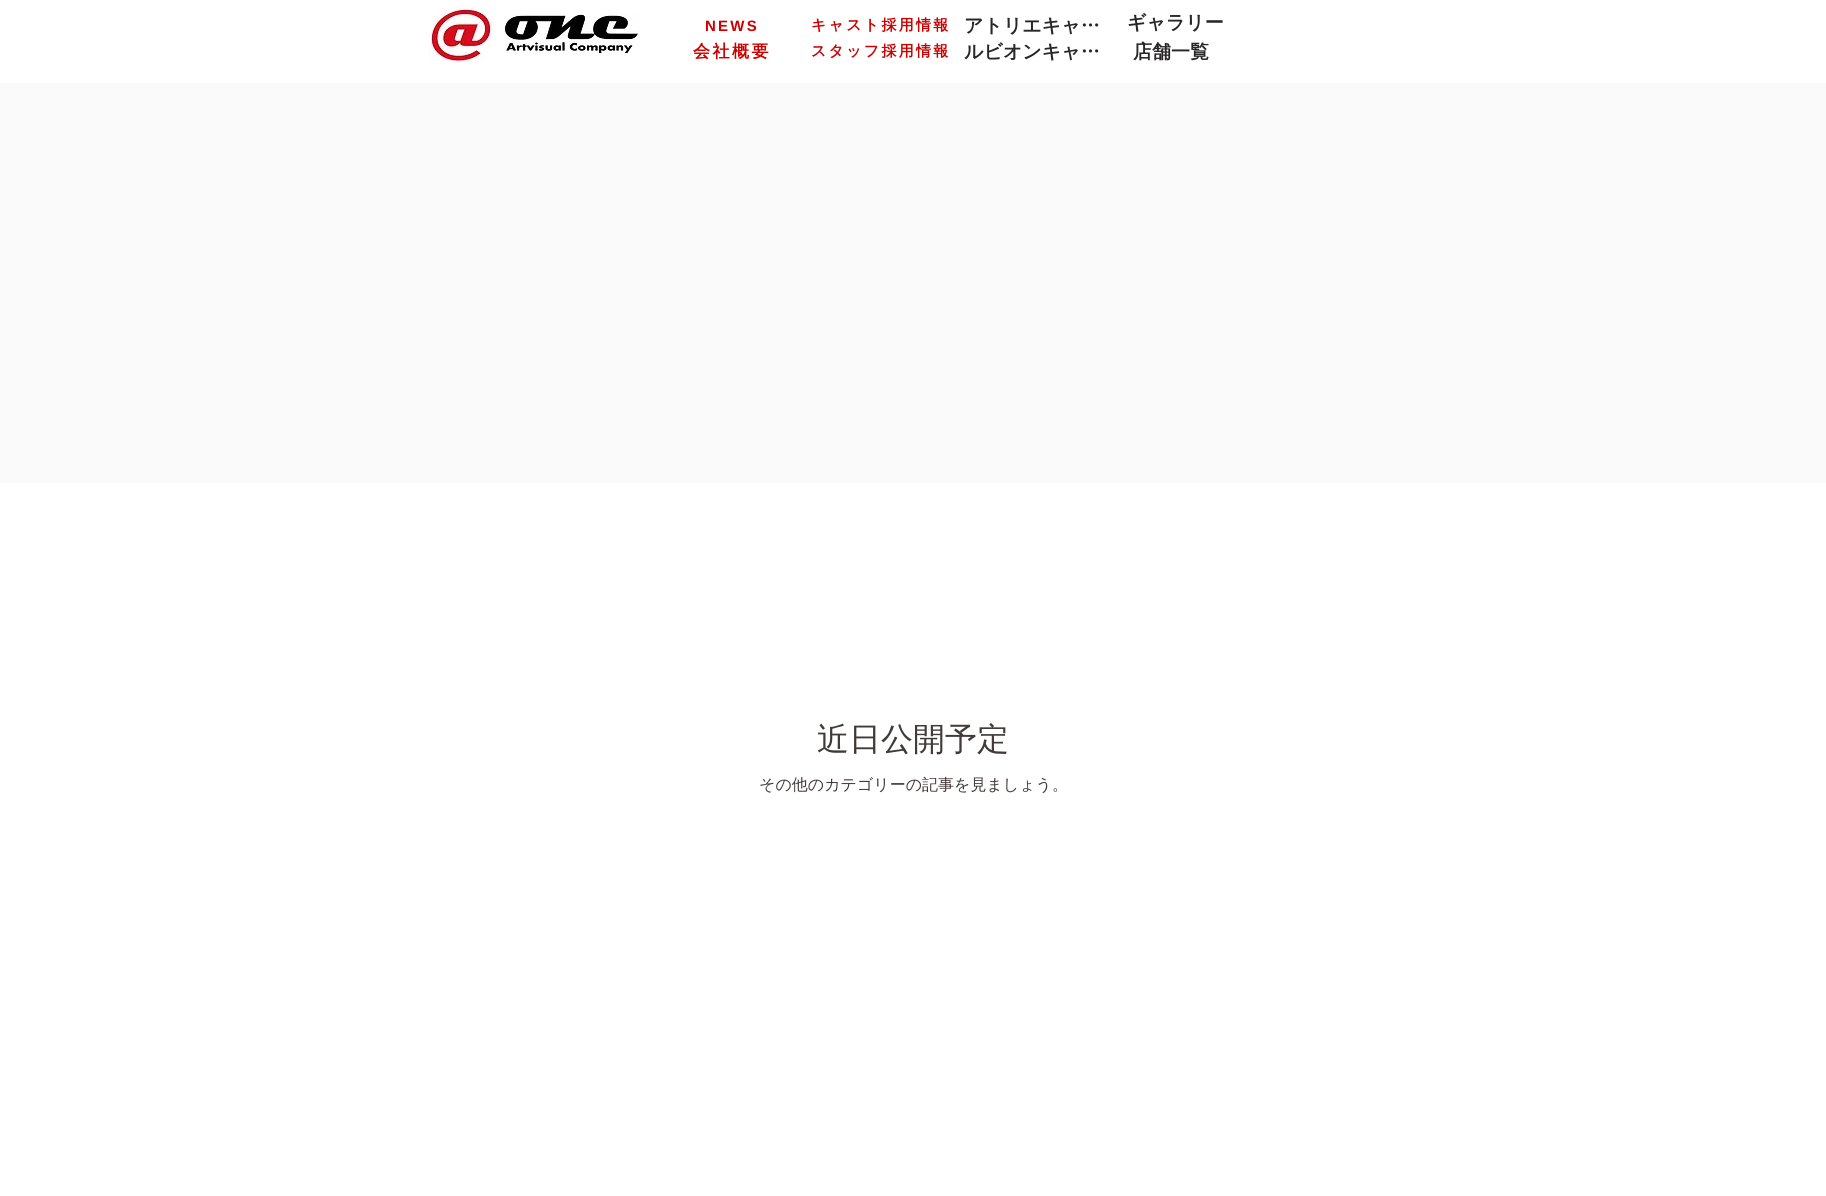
#include <cairo.h>
#include <math.h>
#include <stddef.h>

static cairo_t *ctx;

static void use_color(int r, int g, int b) {
    cairo_set_source_rgb(ctx, r / 255.0, g / 255.0, b / 255.0);
}

static void spaced_text(double x, double y, const char *s, double letter, double word) {
    cairo_move_to(ctx, x, y);
    while (*s) {
        char ch[5] = {0};
        int n = 0;
        do ch[n++] = *s++; while ((*s & 0xC0) == 0x80);
        cairo_show_text(ctx, ch);
        cairo_rel_move_to(ctx, letter + word * (*ch == ' '), 0);
    }
}

static void picture(const char *path, double x, double y, double w, double h) {
    cairo_surface_t *image = cairo_image_surface_create_from_png(path);
    cairo_save(ctx);
    cairo_set_source_surface(ctx, image, x, y);
    cairo_rectangle(ctx, x, y, w, h);
    cairo_fill(ctx);
    cairo_restore(ctx);
    cairo_surface_destroy(image);
}

int main(void) {
    cairo_surface_t *surface = cairo_image_surface_create(CAIRO_FORMAT_RGB24, 1826, 1196);
    ctx = cairo_create(surface);
    cairo_font_options_t *options = cairo_font_options_create();
    cairo_font_options_set_hint_metrics(options, CAIRO_HINT_METRICS_OFF);
    cairo_font_options_set_hint_style(options, CAIRO_HINT_STYLE_NONE);
    cairo_set_font_options(ctx, options);
    cairo_set_miter_limit(ctx, 4);
    use_color(255, 255, 255);
    cairo_paint(ctx);
    picture("img1.png", 428, 7, 64, 55);
    picture("img2.png", 504, 14, 136, 40);
    cairo_select_font_face(ctx, "Liberation Sans", CAIRO_FONT_SLANT_NORMAL, CAIRO_FONT_WEIGHT_BOLD);
    cairo_set_font_size(ctx, 15);
    use_color(205, 0, 0);
    spaced_text(705, 31, "NEWS", 2.25, 0);
    cairo_select_font_face(ctx, "WenQuanYi Zen Hei", CAIRO_FONT_SLANT_NORMAL, CAIRO_FONT_WEIGHT_BOLD);
    spaced_text(811, 30, "キャスト採用情報", 2.25, 0);
    cairo_set_font_size(ctx, 19);
    use_color(40, 38, 38);
    cairo_move_to(ctx, 964, 32);
    cairo_show_text(ctx, "アトリエキャ…");
    cairo_move_to(ctx, 1127, 29);
    cairo_show_text(ctx, "ギャラリー");
    cairo_set_font_size(ctx, 17);
    use_color(205, 0, 0);
    spaced_text(693, 57, "会社概要", 2.5, 0);
    cairo_set_font_size(ctx, 15);
    spaced_text(811, 56, "スタッフ採用情報", 2.25, 0);
    cairo_set_font_size(ctx, 19);
    use_color(40, 38, 38);
    cairo_move_to(ctx, 964, 58);
    cairo_show_text(ctx, "ルビオンキャ…");
    cairo_move_to(ctx, 1133, 58);
    cairo_show_text(ctx, "店舗一覧");
    use_color(250, 250, 250);
    cairo_rectangle(ctx, 0, 83, 1826, 400);
    cairo_fill(ctx);
    cairo_select_font_face(ctx, "WenQuanYi Zen Hei Medium", CAIRO_FONT_SLANT_NORMAL, CAIRO_FONT_WEIGHT_NORMAL);
    cairo_set_font_size(ctx, 32);
    use_color(65, 58, 56);
    cairo_move_to(ctx, 817, 750);
    cairo_show_text(ctx, "近日公開予定");
    cairo_set_font_size(ctx, 16);
    cairo_move_to(ctx, 759, 790);
    cairo_show_text(ctx, "その他のカテゴリーの記事を見ましょう。");
    cairo_surface_write_to_png(surface, "result.png");
    cairo_font_options_destroy(options);
    cairo_destroy(ctx);
    cairo_surface_destroy(surface);
    return 0;
}
